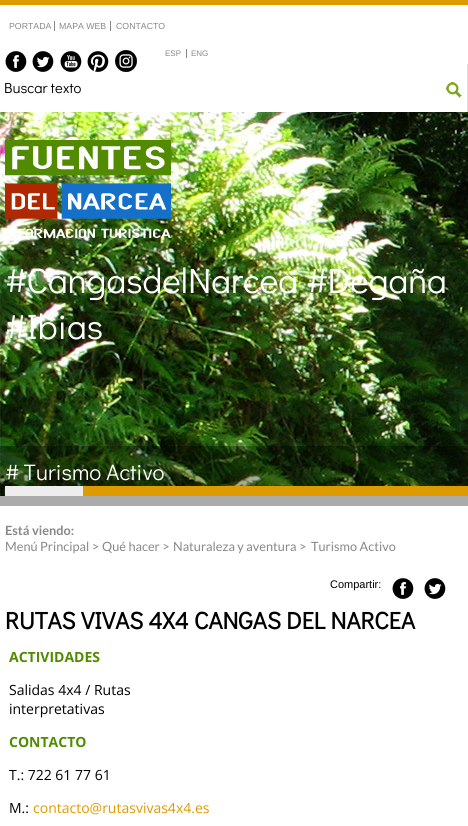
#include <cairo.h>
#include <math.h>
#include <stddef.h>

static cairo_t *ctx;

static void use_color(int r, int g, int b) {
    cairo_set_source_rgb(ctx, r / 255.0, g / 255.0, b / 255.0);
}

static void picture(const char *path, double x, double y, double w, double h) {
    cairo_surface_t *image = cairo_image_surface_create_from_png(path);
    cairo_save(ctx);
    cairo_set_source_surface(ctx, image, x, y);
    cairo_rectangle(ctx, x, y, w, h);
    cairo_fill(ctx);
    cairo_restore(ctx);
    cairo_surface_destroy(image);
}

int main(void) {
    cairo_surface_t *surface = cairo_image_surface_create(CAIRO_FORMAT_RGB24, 468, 826);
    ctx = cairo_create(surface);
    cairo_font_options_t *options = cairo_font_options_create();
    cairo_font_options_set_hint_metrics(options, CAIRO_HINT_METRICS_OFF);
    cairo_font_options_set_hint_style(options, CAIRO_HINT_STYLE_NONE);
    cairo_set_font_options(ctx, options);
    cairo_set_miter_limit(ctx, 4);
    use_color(255, 255, 255);
    cairo_paint(ctx);
    use_color(221, 155, 0);
    cairo_rectangle(ctx, 0, 0, 468, 5);
    cairo_fill(ctx);
    cairo_select_font_face(ctx, "Liberation Sans", CAIRO_FONT_SLANT_NORMAL, CAIRO_FONT_WEIGHT_NORMAL);
    cairo_set_font_size(ctx, 8.75);
    use_color(136, 136, 136);
    cairo_move_to(ctx, 9, 29);
    cairo_show_text(ctx, "PORTADA");
    cairo_move_to(ctx, 59, 29);
    cairo_show_text(ctx, "MAPA WEB");
    cairo_rectangle(ctx, 54, 21, 1, 10);
    cairo_fill(ctx);
    cairo_move_to(ctx, 116, 29);
    cairo_show_text(ctx, "CONTACTO");
    cairo_rectangle(ctx, 110, 21, 1, 10);
    cairo_fill(ctx);
    picture("img1.png", 5, 51, 22, 21);
    picture("img2.png", 32, 51, 22, 21);
    picture("img3.png", 60, 51, 22, 21);
    picture("img4.png", 87, 51, 22, 21);
    picture("img5.png", 115, 50, 22, 22);
    cairo_set_font_size(ctx, 8);
    cairo_move_to(ctx, 165, 56);
    cairo_show_text(ctx, "ESP");
    cairo_move_to(ctx, 191, 56);
    cairo_show_text(ctx, "ENG");
    cairo_rectangle(ctx, 186, 49, 1, 9);
    cairo_fill(ctx);
    use_color(221, 221, 221);
    cairo_rectangle(ctx, 467, 64, 1, 48);
    cairo_fill(ctx);
    cairo_select_font_face(ctx, "Didact Gothic", CAIRO_FONT_SLANT_NORMAL, CAIRO_FONT_WEIGHT_NORMAL);
    cairo_set_font_size(ctx, 14.75);
    use_color(0, 0, 0);
    cairo_move_to(ctx, 4, 93);
    cairo_show_text(ctx, "Buscar texto");
    picture("img6.png", 446, 82, 16, 16);
    picture("img8.png", 0, 112, 468, 384);
    picture("img7.png", 5, 140, 166, 98);
    cairo_set_font_size(ctx, 35.25);
    use_color(255, 255, 255);
    cairo_move_to(ctx, 5, 293);
    cairo_show_text(ctx, "#CangasdelNarcea #Degaña");
    cairo_move_to(ctx, 5, 339);
    cairo_show_text(ctx, "#Ibias");
    cairo_set_source_rgba(ctx, 0, 0, 0, 0.33);
    cairo_rectangle(ctx, 0, 446, 468, 60);
    cairo_fill(ctx);
    cairo_set_font_size(ctx, 22.5);
    use_color(255, 255, 255);
    cairo_move_to(ctx, 5, 480);
    cairo_show_text(ctx, "# Turismo Activo");
    use_color(221, 155, 0);
    cairo_rectangle(ctx, 83, 486, 385, 10);
    cairo_fill(ctx);
    use_color(238, 238, 238);
    cairo_rectangle(ctx, 5, 486, 78, 10);
    cairo_fill(ctx);
    cairo_select_font_face(ctx, "Lato", CAIRO_FONT_SLANT_NORMAL, CAIRO_FONT_WEIGHT_BOLD);
    cairo_set_font_size(ctx, 12.75);
    use_color(136, 136, 136);
    cairo_move_to(ctx, 5, 535);
    cairo_show_text(ctx, "Está viendo:");
    cairo_select_font_face(ctx, "Lato", CAIRO_FONT_SLANT_NORMAL, CAIRO_FONT_WEIGHT_NORMAL);
    cairo_move_to(ctx, 5, 551);
    cairo_show_text(ctx, "Menú Principal >");
    cairo_move_to(ctx, 102, 551);
    cairo_show_text(ctx, "Qué hacer >");
    cairo_move_to(ctx, 173, 551);
    cairo_show_text(ctx, "Naturaleza y aventura >");
    cairo_move_to(ctx, 311, 551);
    cairo_show_text(ctx, "Turismo Activo");
    cairo_select_font_face(ctx, "Liberation Sans", CAIRO_FONT_SLANT_NORMAL, CAIRO_FONT_WEIGHT_NORMAL);
    cairo_set_font_size(ctx, 11);
    use_color(0, 0, 0);
    cairo_move_to(ctx, 330, 588);
    cairo_show_text(ctx, "Compartir:");
    picture("img1.png", 392, 578, 22, 21);
    picture("img2.png", 424, 578, 22, 21);
    cairo_select_font_face(ctx, "Didact Gothic", CAIRO_FONT_SLANT_NORMAL, CAIRO_FONT_WEIGHT_BOLD);
    cairo_set_font_size(ctx, 24);
    cairo_move_to(ctx, 5, 629);
    cairo_show_text(ctx, "RUTAS VIVAS 4X4 CANGAS DEL NARCEA");
    cairo_select_font_face(ctx, "Open Sans", CAIRO_FONT_SLANT_NORMAL, CAIRO_FONT_WEIGHT_BOLD);
    cairo_set_font_size(ctx, 14);
    use_color(80, 140, 0);
    cairo_move_to(ctx, 9, 662);
    cairo_show_text(ctx, "ACTIVIDADES");
    cairo_select_font_face(ctx, "Open Sans", CAIRO_FONT_SLANT_NORMAL, CAIRO_FONT_WEIGHT_NORMAL);
    use_color(0, 0, 0);
    cairo_move_to(ctx, 9, 695);
    cairo_show_text(ctx, "Salidas 4x4 / Rutas");
    cairo_move_to(ctx, 9, 714);
    cairo_show_text(ctx, "interpretativas");
    cairo_select_font_face(ctx, "Open Sans", CAIRO_FONT_SLANT_NORMAL, CAIRO_FONT_WEIGHT_BOLD);
    use_color(80, 140, 0);
    cairo_move_to(ctx, 9, 747);
    cairo_show_text(ctx, "CONTACTO");
    cairo_select_font_face(ctx, "Open Sans", CAIRO_FONT_SLANT_NORMAL, CAIRO_FONT_WEIGHT_NORMAL);
    use_color(0, 0, 0);
    cairo_move_to(ctx, 9, 780);
    cairo_show_text(ctx, "T.: 722 61 77 61");
    cairo_move_to(ctx, 9, 813);
    cairo_show_text(ctx, "M.:");
    use_color(221, 155, 0);
    cairo_move_to(ctx, 33, 813);
    cairo_show_text(ctx, "contacto@rutasvivas4x4.es");
    cairo_surface_write_to_png(surface, "result.png");
    cairo_font_options_destroy(options);
    cairo_destroy(ctx);
    cairo_surface_destroy(surface);
    return 0;
}
